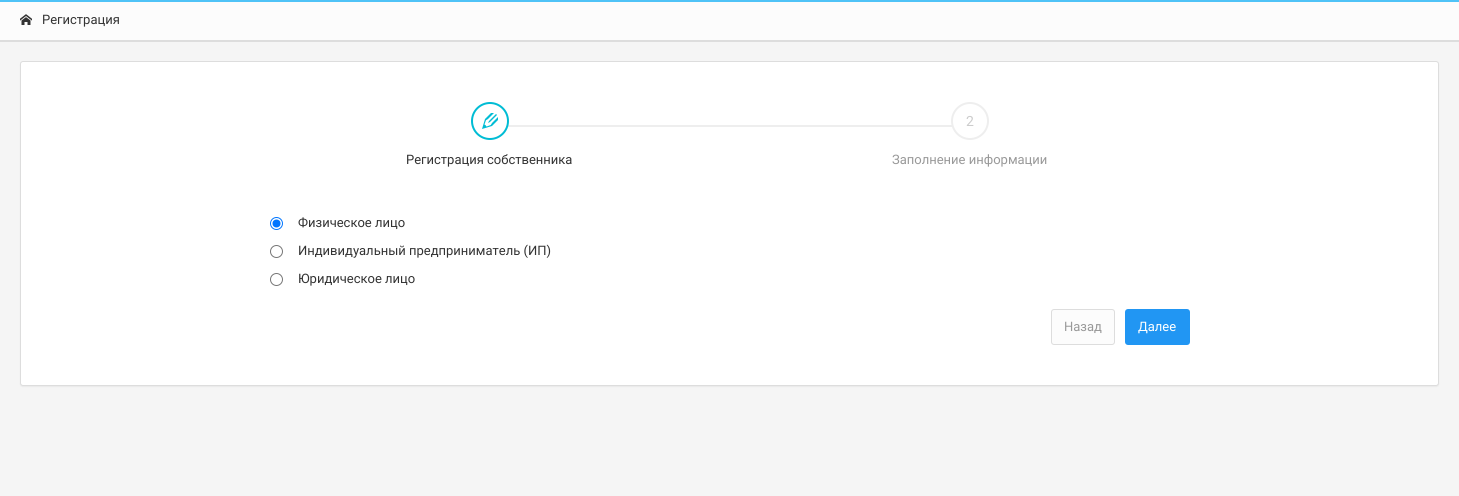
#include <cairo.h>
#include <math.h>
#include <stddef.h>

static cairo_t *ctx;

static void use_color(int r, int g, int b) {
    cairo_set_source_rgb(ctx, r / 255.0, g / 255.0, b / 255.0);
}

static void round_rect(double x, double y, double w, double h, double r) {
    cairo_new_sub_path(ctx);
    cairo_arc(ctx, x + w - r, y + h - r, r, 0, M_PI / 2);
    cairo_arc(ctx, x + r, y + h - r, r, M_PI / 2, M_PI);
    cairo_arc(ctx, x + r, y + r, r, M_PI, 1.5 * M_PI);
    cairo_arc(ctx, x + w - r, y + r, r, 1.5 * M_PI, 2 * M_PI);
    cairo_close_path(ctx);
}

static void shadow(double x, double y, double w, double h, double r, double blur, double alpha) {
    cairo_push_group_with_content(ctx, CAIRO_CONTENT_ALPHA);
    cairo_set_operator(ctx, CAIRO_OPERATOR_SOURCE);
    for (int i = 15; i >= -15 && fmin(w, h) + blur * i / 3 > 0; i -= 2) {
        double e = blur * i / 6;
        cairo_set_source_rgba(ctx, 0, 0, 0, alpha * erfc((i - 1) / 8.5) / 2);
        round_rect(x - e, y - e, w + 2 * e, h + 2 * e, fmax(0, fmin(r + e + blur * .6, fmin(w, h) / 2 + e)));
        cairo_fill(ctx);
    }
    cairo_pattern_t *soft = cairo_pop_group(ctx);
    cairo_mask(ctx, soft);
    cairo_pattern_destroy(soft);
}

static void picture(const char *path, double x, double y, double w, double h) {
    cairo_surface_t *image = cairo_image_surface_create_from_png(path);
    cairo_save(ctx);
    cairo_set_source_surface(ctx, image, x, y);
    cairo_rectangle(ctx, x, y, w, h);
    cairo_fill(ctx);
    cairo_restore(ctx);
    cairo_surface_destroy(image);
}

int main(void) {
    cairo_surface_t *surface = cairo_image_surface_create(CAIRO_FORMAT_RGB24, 1459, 496);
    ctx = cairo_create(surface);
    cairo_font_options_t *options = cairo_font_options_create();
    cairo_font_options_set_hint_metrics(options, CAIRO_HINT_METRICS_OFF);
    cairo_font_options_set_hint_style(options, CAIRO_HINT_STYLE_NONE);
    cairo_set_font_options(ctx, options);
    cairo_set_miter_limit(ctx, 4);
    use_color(245, 245, 245);
    cairo_paint(ctx);
    use_color(79, 195, 247);
    cairo_rectangle(ctx, 0, 0, 1459, 2);
    cairo_fill(ctx);
    use_color(221, 221, 221);
    cairo_rectangle(ctx, 0, 40, 1459, 2);
    cairo_fill(ctx);
    use_color(252, 252, 252);
    cairo_rectangle(ctx, 0, 2, 1459, 38);
    cairo_fill(ctx);
    picture("img1.png", 20, 14, 12, 11);
    cairo_select_font_face(ctx, "Roboto", CAIRO_FONT_SLANT_NORMAL, CAIRO_FONT_WEIGHT_NORMAL);
    cairo_set_font_size(ctx, 13);
    use_color(51, 51, 51);
    cairo_move_to(ctx, 42, 24);
    cairo_show_text(ctx, "Регистрация");
    use_color(0, 0, 0);
    shadow(20, 62, 1419, 325, 3, 0.5, 0.05);
    use_color(255, 255, 255);
    round_rect(20.5, 61.5, 1418, 324, 2.5);
    cairo_fill_preserve(ctx);
    use_color(221, 221, 221);
    cairo_set_line_width(ctx, 1);
    cairo_stroke(ctx);
    use_color(238, 238, 238);
    cairo_rectangle(ctx, 508, 125, 444, 2);
    cairo_fill(ctx);
    use_color(255, 255, 255);
    cairo_arc(ctx, 490, 121, 18, 0, 2 * M_PI);
    cairo_fill_preserve(ctx);
    use_color(0, 188, 212);
    cairo_set_line_width(ctx, 2);
    cairo_stroke(ctx);
    picture("img2.png", 482, 113, 16, 16);
    use_color(51, 51, 51);
    cairo_move_to(ctx, 406, 164);
    cairo_show_text(ctx, "Регистрация собственника");
    use_color(255, 255, 255);
    cairo_new_path(ctx);
    cairo_arc(ctx, 970, 121, 18, 0, 2 * M_PI);
    cairo_fill_preserve(ctx);
    use_color(238, 238, 238);
    cairo_stroke(ctx);
    cairo_set_font_size(ctx, 14);
    use_color(204, 204, 204);
    cairo_move_to(ctx, 966, 126);
    cairo_show_text(ctx, "2");
    cairo_set_font_size(ctx, 13);
    use_color(153, 153, 153);
    cairo_move_to(ctx, 892, 164);
    cairo_show_text(ctx, "Заполнение информации");
    cairo_new_path(ctx);
    cairo_arc(ctx, 276.5, 223.5, 6, 0, 2 * M_PI);
    use_color(0, 117, 255);
    cairo_set_line_width(ctx, 1);
    cairo_stroke(ctx);
    cairo_arc(ctx, 276.5, 223.5, 4, 0, 2 * M_PI);
    cairo_fill(ctx);
    use_color(51, 51, 51);
    cairo_move_to(ctx, 298, 227);
    cairo_show_text(ctx, "Физическое лицо");
    cairo_new_path(ctx);
    cairo_arc(ctx, 276.5, 251.5, 6, 0, 2 * M_PI);
    use_color(118, 118, 118);
    cairo_stroke(ctx);
    use_color(51, 51, 51);
    cairo_move_to(ctx, 298, 255);
    cairo_show_text(ctx, "Индивидуальный предприниматель (ИП)");
    cairo_new_path(ctx);
    cairo_arc(ctx, 276.5, 279.5, 6, 0, 2 * M_PI);
    use_color(118, 118, 118);
    cairo_stroke(ctx);
    use_color(51, 51, 51);
    cairo_move_to(ctx, 298, 283);
    cairo_show_text(ctx, "Юридическое лицо");
    use_color(252, 252, 252);
    round_rect(1051.5, 309.5, 63, 35, 2.5);
    cairo_fill_preserve(ctx);
    use_color(221, 221, 221);
    cairo_stroke(ctx);
    use_color(153, 153, 153);
    cairo_move_to(ctx, 1064, 331);
    cairo_show_text(ctx, "Назад");
    use_color(33, 150, 243);
    round_rect(1125, 309, 65, 36, 3);
    cairo_fill(ctx);
    use_color(255, 255, 255);
    cairo_move_to(ctx, 1138, 331);
    cairo_show_text(ctx, "Далее");
    cairo_surface_write_to_png(surface, "result.png");
    cairo_font_options_destroy(options);
    cairo_destroy(ctx);
    cairo_surface_destroy(surface);
    return 0;
}
